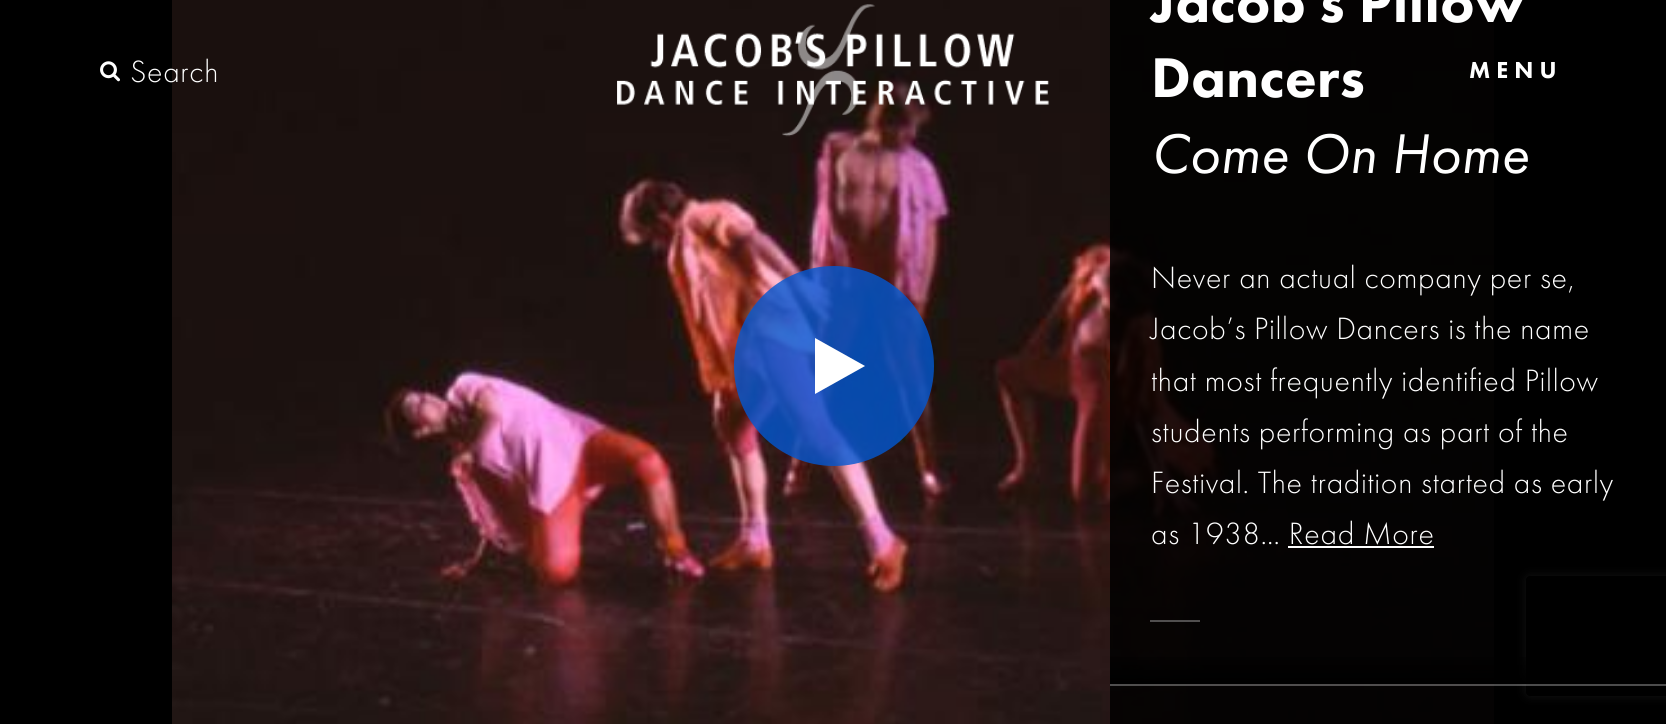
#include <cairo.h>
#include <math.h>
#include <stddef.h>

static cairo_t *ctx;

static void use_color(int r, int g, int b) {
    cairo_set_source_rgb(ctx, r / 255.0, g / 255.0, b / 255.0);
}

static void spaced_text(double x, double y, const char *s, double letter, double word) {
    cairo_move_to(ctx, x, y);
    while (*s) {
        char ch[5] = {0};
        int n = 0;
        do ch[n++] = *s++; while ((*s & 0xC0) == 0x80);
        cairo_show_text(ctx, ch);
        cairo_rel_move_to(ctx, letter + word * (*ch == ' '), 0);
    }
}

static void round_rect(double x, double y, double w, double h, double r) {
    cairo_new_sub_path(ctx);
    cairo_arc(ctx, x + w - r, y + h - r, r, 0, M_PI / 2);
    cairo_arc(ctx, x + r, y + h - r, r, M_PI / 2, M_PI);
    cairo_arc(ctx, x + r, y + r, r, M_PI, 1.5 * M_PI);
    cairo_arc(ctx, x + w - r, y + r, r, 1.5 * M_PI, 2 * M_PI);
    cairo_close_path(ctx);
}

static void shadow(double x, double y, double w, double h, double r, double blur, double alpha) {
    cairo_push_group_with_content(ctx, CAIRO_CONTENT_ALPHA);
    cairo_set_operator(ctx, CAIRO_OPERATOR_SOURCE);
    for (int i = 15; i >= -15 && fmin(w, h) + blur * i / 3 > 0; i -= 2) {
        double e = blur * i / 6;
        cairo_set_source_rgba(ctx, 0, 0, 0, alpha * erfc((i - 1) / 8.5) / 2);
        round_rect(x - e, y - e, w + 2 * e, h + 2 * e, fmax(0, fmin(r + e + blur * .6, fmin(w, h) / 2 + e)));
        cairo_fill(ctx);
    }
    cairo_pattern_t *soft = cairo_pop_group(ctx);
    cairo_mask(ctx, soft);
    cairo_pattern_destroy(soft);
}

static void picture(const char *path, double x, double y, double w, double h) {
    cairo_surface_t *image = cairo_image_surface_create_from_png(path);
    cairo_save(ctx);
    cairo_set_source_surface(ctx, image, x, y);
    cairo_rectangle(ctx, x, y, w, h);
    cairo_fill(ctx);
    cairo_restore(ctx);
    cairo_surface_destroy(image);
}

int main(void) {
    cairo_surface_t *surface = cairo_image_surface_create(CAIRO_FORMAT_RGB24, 1666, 724);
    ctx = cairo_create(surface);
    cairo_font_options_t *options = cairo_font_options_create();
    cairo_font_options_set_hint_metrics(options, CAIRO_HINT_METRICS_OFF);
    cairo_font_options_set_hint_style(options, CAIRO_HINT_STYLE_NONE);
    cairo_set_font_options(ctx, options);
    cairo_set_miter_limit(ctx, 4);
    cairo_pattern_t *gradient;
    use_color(0, 0, 0);
    cairo_paint(ctx);
    picture("img1.png", 172, 0, 1322, 724);
    cairo_set_source_rgba(ctx, 0.008, 0.345, 0.824, 0.8);
    cairo_arc(ctx, 834, 366, 100, 0, 2 * M_PI);
    cairo_fill(ctx);
    use_color(255, 255, 255);
    cairo_new_path(ctx);
    cairo_move_to(ctx, 815, 366);
    cairo_line_to(ctx, 815, 338);
    cairo_line_to(ctx, 865, 366);
    cairo_line_to(ctx, 815, 394);
    cairo_close_path(ctx);
    cairo_fill(ctx);
    cairo_save(ctx);
    cairo_set_fill_rule(ctx, CAIRO_FILL_RULE_EVEN_ODD);
    cairo_new_path(ctx);
    cairo_move_to(ctx, 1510, 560);
    cairo_line_to(ctx, 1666, 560);
    cairo_line_to(ctx, 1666, 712);
    cairo_line_to(ctx, 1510, 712);
    cairo_close_path(ctx);
    cairo_move_to(ctx, 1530, 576);
    cairo_line_to(ctx, 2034, 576);
    cairo_curve_to(ctx, 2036, 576, 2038, 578, 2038, 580);
    cairo_line_to(ctx, 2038, 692);
    cairo_curve_to(ctx, 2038, 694, 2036, 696, 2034, 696);
    cairo_line_to(ctx, 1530, 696);
    cairo_curve_to(ctx, 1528, 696, 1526, 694, 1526, 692);
    cairo_line_to(ctx, 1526, 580);
    cairo_curve_to(ctx, 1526, 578, 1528, 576, 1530, 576);
    cairo_close_path(ctx);
    cairo_clip(ctx);
    use_color(128, 128, 128);
    shadow(1526, 576, 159, 120, 4, 5, 1);
    cairo_restore(ctx);
    cairo_set_source_rgba(ctx, 0, 0, 0, 0.85);
    cairo_rectangle(ctx, 1110, 0, 556, 724);
    cairo_fill(ctx);
    cairo_select_font_face(ctx, "Futura PT Black", CAIRO_FONT_SLANT_NORMAL, CAIRO_FONT_WEIGHT_NORMAL);
    cairo_set_font_size(ctx, 58);
    use_color(255, 255, 255);
    spaced_text(1151, 22, "Jacob's Pillow", 0.4, 0);
    spaced_text(1151, 97, "Dancers", 0.4, 0);
    cairo_select_font_face(ctx, "Futura PT", CAIRO_FONT_SLANT_ITALIC, CAIRO_FONT_WEIGHT_NORMAL);
    spaced_text(1151, 173, "Come On Home", 0.4, 0);
    cairo_select_font_face(ctx, "Futura PT Light", CAIRO_FONT_SLANT_NORMAL, CAIRO_FONT_WEIGHT_NORMAL);
    cairo_set_font_size(ctx, 32);
    spaced_text(1151, 288, "Never an actual company per se,", 0.65, 0);
    spaced_text(1151, 339, "Jacob’s Pillow Dancers is the name", 0.65, 0);
    spaced_text(1151, 391, "that most frequently identified Pillow", 0.65, 0);
    spaced_text(1151, 442, "students performing as part of the", 0.65, 0);
    spaced_text(1151, 493, "Festival. The tradition started as early", 0.65, 0);
    spaced_text(1151, 544, "as 1938… Read More", 0.65, 0);
    cairo_rectangle(ctx, 1288, 546, 146, 2);
    cairo_fill(ctx);
    use_color(81, 79, 79);
    cairo_rectangle(ctx, 1150, 620, 50, 2);
    cairo_fill(ctx);
    gradient = cairo_pattern_create_linear(1388, 684, 1388, 646);
    cairo_pattern_add_color_stop_rgba(gradient, 0, 0, 0, 0, 1);
    cairo_pattern_add_color_stop_rgba(gradient, 1, 0, 0, 0, 0);
    cairo_set_source(ctx, gradient);
    cairo_pattern_destroy(gradient);
    cairo_rectangle(ctx, 1110, 657, 416, 27);
    cairo_fill(ctx);
    cairo_set_source_rgba(ctx, 1, 1, 1, 0.3);
    cairo_rectangle(ctx, 1110, 684, 556, 2);
    cairo_fill(ctx);
    picture("img2.png", 100, 61, 20, 21);
    use_color(255, 255, 255);
    spaced_text(130, 82, "Search", 0.65, 0);
    picture("img3.png", 617, 4, 433, 133);
    cairo_select_font_face(ctx, "Futura PT Black", CAIRO_FONT_SLANT_NORMAL, CAIRO_FONT_WEIGHT_NORMAL);
    cairo_set_font_size(ctx, 24);
    spaced_text(1469, 78, "MENU", 6, 0);
    cairo_surface_write_to_png(surface, "result.png");
    cairo_font_options_destroy(options);
    cairo_destroy(ctx);
    cairo_surface_destroy(surface);
    return 0;
}
